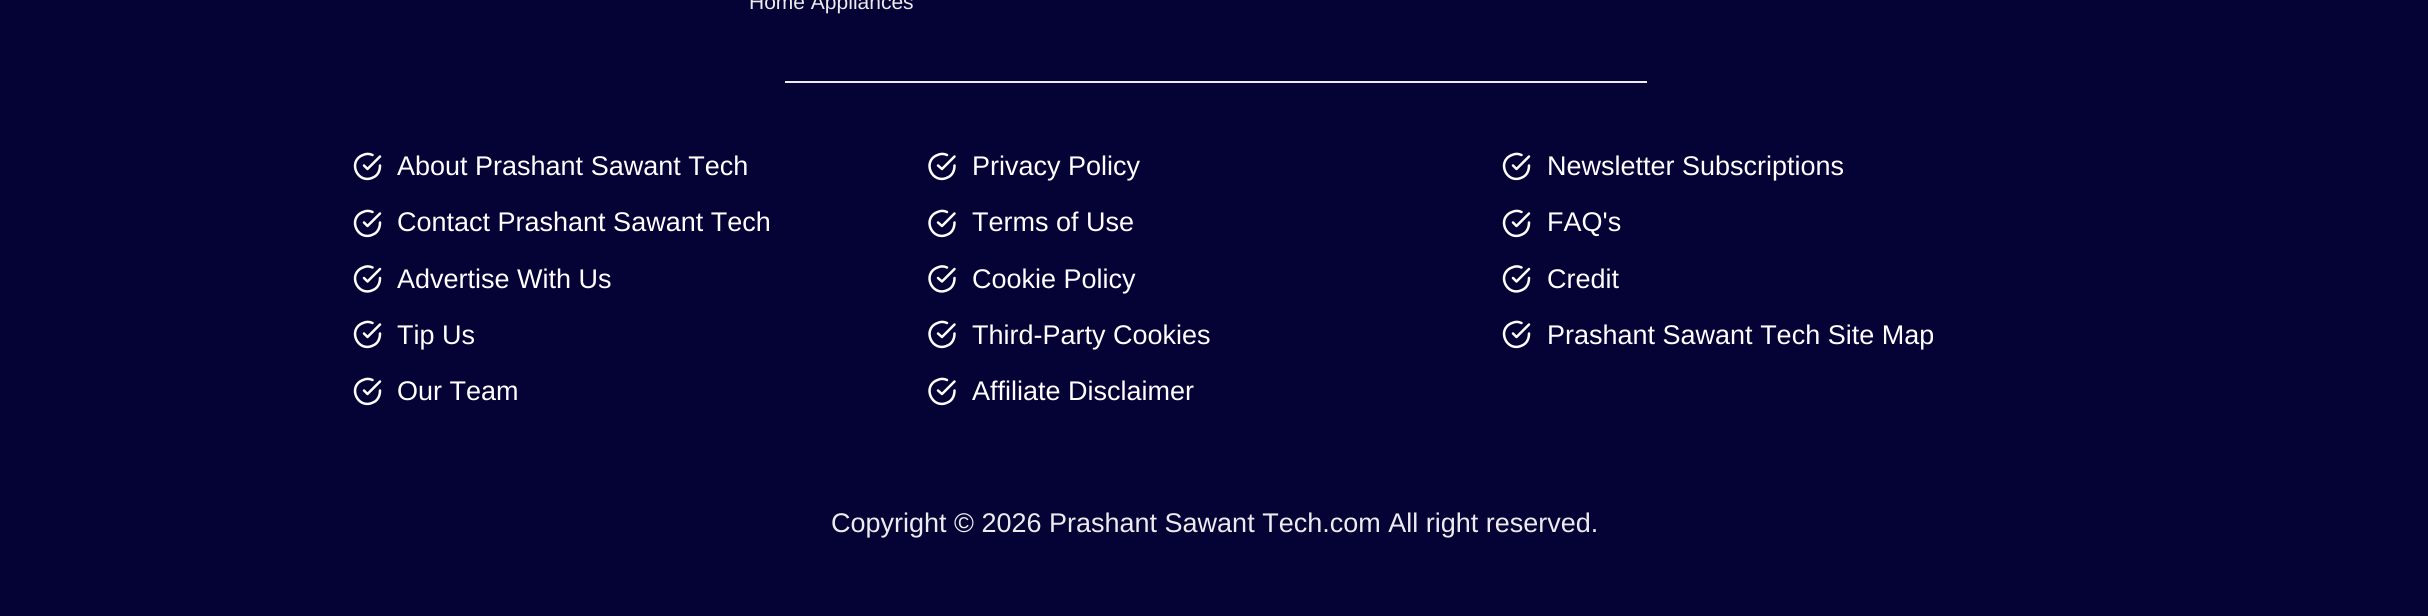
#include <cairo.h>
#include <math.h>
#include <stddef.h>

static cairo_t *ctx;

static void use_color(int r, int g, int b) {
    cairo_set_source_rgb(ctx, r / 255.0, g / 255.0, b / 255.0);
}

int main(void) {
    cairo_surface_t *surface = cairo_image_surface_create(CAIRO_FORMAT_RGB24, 2428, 616);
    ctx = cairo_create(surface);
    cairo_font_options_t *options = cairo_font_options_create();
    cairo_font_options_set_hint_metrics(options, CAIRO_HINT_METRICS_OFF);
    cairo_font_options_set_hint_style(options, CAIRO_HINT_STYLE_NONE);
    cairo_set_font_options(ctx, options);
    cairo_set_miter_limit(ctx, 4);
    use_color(5, 2, 53);
    cairo_paint(ctx);
    cairo_select_font_face(ctx, "Liberation Sans", CAIRO_FONT_SLANT_NORMAL, CAIRO_FONT_WEIGHT_NORMAL);
    cairo_set_font_size(ctx, 21);
    use_color(236, 236, 239);
    cairo_move_to(ctx, 749, 9);
    cairo_show_text(ctx, "Home Appliances");
    use_color(238, 238, 238);
    cairo_rectangle(ctx, 785, 81, 862, 2);
    cairo_fill(ctx);
    cairo_new_path(ctx);
    cairo_move_to(ctx, 380, 165.5);
    cairo_curve_to(ctx, 380, 170.5, 378, 175.5, 373, 177.5);
    cairo_curve_to(ctx, 357.5, 185, 347, 161, 363, 155);
    cairo_curve_to(ctx, 366, 153.5, 369.5, 153.5, 372.5, 155);
    cairo_move_to(ctx, 380, 156.5);
    cairo_line_to(ctx, 367.5, 169);
    cairo_line_to(ctx, 364, 165.5);
    use_color(254, 254, 255);
    cairo_set_line_width(ctx, 2.5);
    cairo_set_line_cap(ctx, CAIRO_LINE_CAP_ROUND);
    cairo_set_line_join(ctx, CAIRO_LINE_JOIN_ROUND);
    cairo_stroke(ctx);
    cairo_set_font_size(ctx, 27);
    cairo_move_to(ctx, 397, 175);
    cairo_show_text(ctx, "About Prashant Sawant Tech");
    cairo_new_path(ctx);
    cairo_move_to(ctx, 380, 222.5);
    cairo_curve_to(ctx, 380, 227.5, 378, 232.5, 373, 234.5);
    cairo_curve_to(ctx, 357.5, 242, 347, 218, 363, 212);
    cairo_curve_to(ctx, 366, 210.5, 369.5, 210.5, 372.5, 212);
    cairo_move_to(ctx, 380, 213.5);
    cairo_line_to(ctx, 367.5, 226);
    cairo_line_to(ctx, 364, 222.5);
    cairo_stroke(ctx);
    cairo_move_to(ctx, 397, 231);
    cairo_show_text(ctx, "Contact Prashant Sawant Tech");
    cairo_new_path(ctx);
    cairo_move_to(ctx, 380, 278);
    cairo_curve_to(ctx, 380, 283, 378, 288, 373, 290);
    cairo_curve_to(ctx, 357.5, 297.5, 347, 273.5, 363, 267.5);
    cairo_curve_to(ctx, 366, 266, 369.5, 266, 372.5, 267.5);
    cairo_move_to(ctx, 380, 269);
    cairo_line_to(ctx, 367.5, 281.5);
    cairo_line_to(ctx, 364, 278);
    cairo_stroke(ctx);
    cairo_move_to(ctx, 397, 288);
    cairo_show_text(ctx, "Advertise With Us");
    cairo_new_path(ctx);
    cairo_move_to(ctx, 380, 333.5);
    cairo_curve_to(ctx, 380, 338.5, 378, 343.5, 373, 345.5);
    cairo_curve_to(ctx, 357.5, 353, 347, 329, 363, 323);
    cairo_curve_to(ctx, 366, 321.5, 369.5, 321.5, 372.5, 323);
    cairo_move_to(ctx, 380, 324.5);
    cairo_line_to(ctx, 367.5, 337);
    cairo_line_to(ctx, 364, 333.5);
    cairo_stroke(ctx);
    cairo_move_to(ctx, 397, 344);
    cairo_show_text(ctx, "Tip Us");
    cairo_new_path(ctx);
    cairo_move_to(ctx, 380, 390.5);
    cairo_curve_to(ctx, 380, 395.5, 378, 400.5, 373, 402.5);
    cairo_curve_to(ctx, 357.5, 410, 347, 386, 363, 380);
    cairo_curve_to(ctx, 366, 378.5, 369.5, 378.5, 372.5, 380);
    cairo_move_to(ctx, 380, 381.5);
    cairo_line_to(ctx, 367.5, 394);
    cairo_line_to(ctx, 364, 390.5);
    cairo_stroke(ctx);
    cairo_move_to(ctx, 397, 400);
    cairo_show_text(ctx, "Our Team");
    cairo_new_path(ctx);
    cairo_move_to(ctx, 954.5, 165.5);
    cairo_curve_to(ctx, 954.5, 170.5, 952.5, 175.5, 947.5, 177.5);
    cairo_curve_to(ctx, 932, 185, 921.5, 161, 937.5, 155);
    cairo_curve_to(ctx, 940.5, 153.5, 944, 153.5, 947, 155);
    cairo_move_to(ctx, 954.5, 156.5);
    cairo_line_to(ctx, 942, 169);
    cairo_line_to(ctx, 938, 165.5);
    cairo_stroke(ctx);
    cairo_move_to(ctx, 972, 175);
    cairo_show_text(ctx, "Privacy Policy");
    cairo_new_path(ctx);
    cairo_move_to(ctx, 954.5, 222.5);
    cairo_curve_to(ctx, 954.5, 227.5, 952.5, 232.5, 947.5, 234.5);
    cairo_curve_to(ctx, 932, 242, 921.5, 218, 937.5, 212);
    cairo_curve_to(ctx, 940.5, 210.5, 944, 210.5, 947, 212);
    cairo_move_to(ctx, 954.5, 213.5);
    cairo_line_to(ctx, 942, 226);
    cairo_line_to(ctx, 938, 222.5);
    cairo_stroke(ctx);
    cairo_move_to(ctx, 972, 231);
    cairo_show_text(ctx, "Terms of Use");
    cairo_new_path(ctx);
    cairo_move_to(ctx, 954.5, 278);
    cairo_curve_to(ctx, 954.5, 283, 952.5, 288, 947.5, 290);
    cairo_curve_to(ctx, 932, 297.5, 921.5, 273.5, 937.5, 267.5);
    cairo_curve_to(ctx, 940.5, 266, 944, 266, 947, 267.5);
    cairo_move_to(ctx, 954.5, 269);
    cairo_line_to(ctx, 942, 281.5);
    cairo_line_to(ctx, 938, 278);
    cairo_stroke(ctx);
    cairo_move_to(ctx, 972, 288);
    cairo_show_text(ctx, "Cookie Policy");
    cairo_new_path(ctx);
    cairo_move_to(ctx, 954.5, 333.5);
    cairo_curve_to(ctx, 954.5, 338.5, 952.5, 343.5, 947.5, 345.5);
    cairo_curve_to(ctx, 932, 353, 921.5, 329, 937.5, 323);
    cairo_curve_to(ctx, 940.5, 321.5, 944, 321.5, 947, 323);
    cairo_move_to(ctx, 954.5, 324.5);
    cairo_line_to(ctx, 942, 337);
    cairo_line_to(ctx, 938, 333.5);
    cairo_stroke(ctx);
    cairo_move_to(ctx, 972, 344);
    cairo_show_text(ctx, "Third-Party Cookies");
    cairo_new_path(ctx);
    cairo_move_to(ctx, 954.5, 390.5);
    cairo_curve_to(ctx, 954.5, 395.5, 952.5, 400.5, 947.5, 402.5);
    cairo_curve_to(ctx, 932, 410, 921.5, 386, 937.5, 380);
    cairo_curve_to(ctx, 940.5, 378.5, 944, 378.5, 947, 380);
    cairo_move_to(ctx, 954.5, 381.5);
    cairo_line_to(ctx, 942, 394);
    cairo_line_to(ctx, 938, 390.5);
    cairo_stroke(ctx);
    cairo_move_to(ctx, 972, 400);
    cairo_show_text(ctx, "Affiliate Disclaimer");
    cairo_new_path(ctx);
    cairo_move_to(ctx, 1529, 165.5);
    cairo_curve_to(ctx, 1529, 170.5, 1527, 175.5, 1522, 177.5);
    cairo_curve_to(ctx, 1506.5, 185, 1496, 161, 1512, 155);
    cairo_curve_to(ctx, 1515, 153.5, 1518.5, 153.5, 1521.5, 155);
    cairo_move_to(ctx, 1529, 156.5);
    cairo_line_to(ctx, 1516.5, 169);
    cairo_line_to(ctx, 1513, 165.5);
    cairo_stroke(ctx);
    cairo_move_to(ctx, 1547, 175);
    cairo_show_text(ctx, "Newsletter Subscriptions");
    cairo_new_path(ctx);
    cairo_move_to(ctx, 1529, 222.5);
    cairo_curve_to(ctx, 1529, 227.5, 1527, 232.5, 1522, 234.5);
    cairo_curve_to(ctx, 1506.5, 242, 1496, 218, 1512, 212);
    cairo_curve_to(ctx, 1515, 210.5, 1518.5, 210.5, 1521.5, 212);
    cairo_move_to(ctx, 1529, 213.5);
    cairo_line_to(ctx, 1516.5, 226);
    cairo_line_to(ctx, 1513, 222.5);
    cairo_stroke(ctx);
    cairo_move_to(ctx, 1547, 231);
    cairo_show_text(ctx, "FAQ's");
    cairo_new_path(ctx);
    cairo_move_to(ctx, 1529, 278);
    cairo_curve_to(ctx, 1529, 283, 1527, 288, 1522, 290);
    cairo_curve_to(ctx, 1506.5, 297.5, 1496, 273.5, 1512, 267.5);
    cairo_curve_to(ctx, 1515, 266, 1518.5, 266, 1521.5, 267.5);
    cairo_move_to(ctx, 1529, 269);
    cairo_line_to(ctx, 1516.5, 281.5);
    cairo_line_to(ctx, 1513, 278);
    cairo_stroke(ctx);
    cairo_move_to(ctx, 1547, 288);
    cairo_show_text(ctx, "Credit");
    cairo_new_path(ctx);
    cairo_move_to(ctx, 1529, 333.5);
    cairo_curve_to(ctx, 1529, 338.5, 1527, 343.5, 1522, 345.5);
    cairo_curve_to(ctx, 1506.5, 353, 1496, 329, 1512, 323);
    cairo_curve_to(ctx, 1515, 321.5, 1518.5, 321.5, 1521.5, 323);
    cairo_move_to(ctx, 1529, 324.5);
    cairo_line_to(ctx, 1516.5, 337);
    cairo_line_to(ctx, 1513, 333.5);
    cairo_stroke(ctx);
    cairo_move_to(ctx, 1547, 344);
    cairo_show_text(ctx, "Prashant Sawant Tech Site Map");
    use_color(236, 236, 239);
    cairo_move_to(ctx, 831, 532);
    cairo_show_text(ctx, "Copyright © 2026 Prashant Sawant Tech.com All right reserved.");
    cairo_surface_write_to_png(surface, "result.png");
    cairo_font_options_destroy(options);
    cairo_destroy(ctx);
    cairo_surface_destroy(surface);
    return 0;
}
